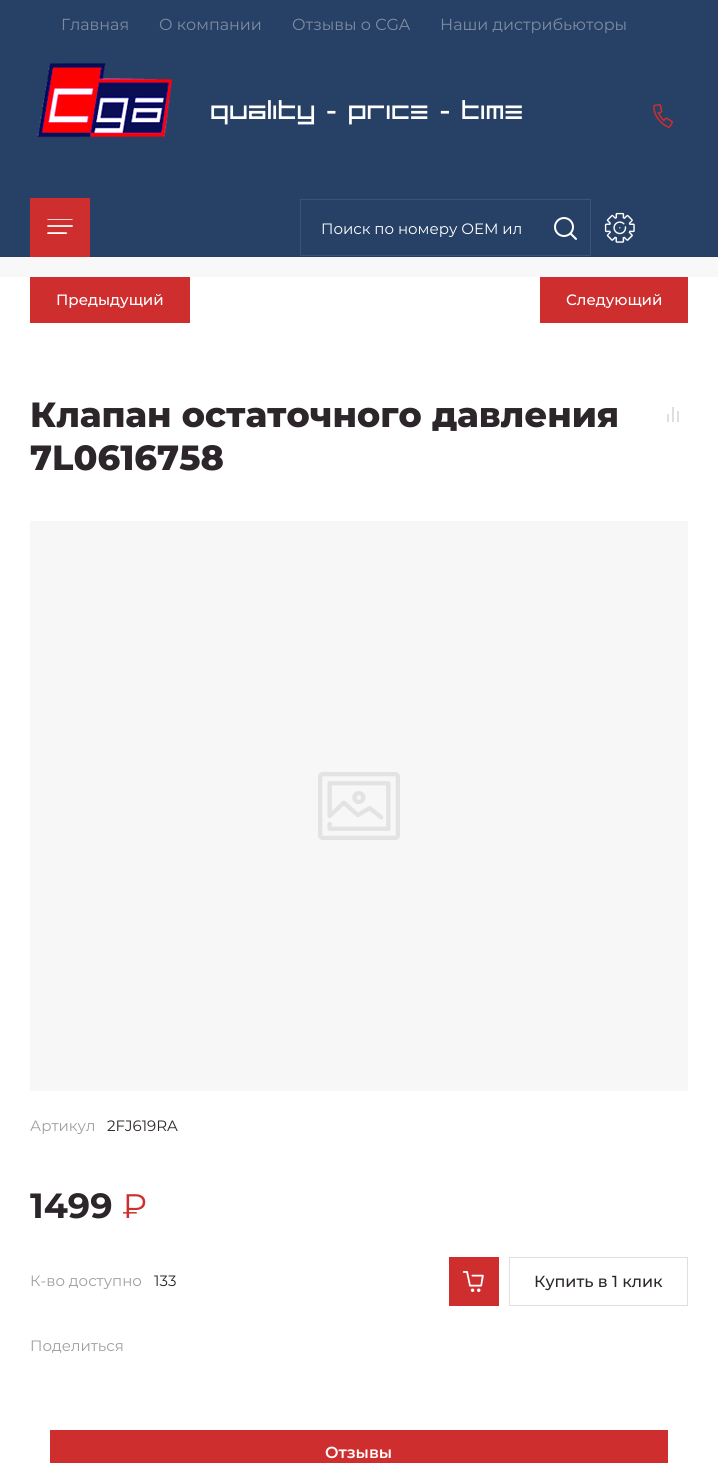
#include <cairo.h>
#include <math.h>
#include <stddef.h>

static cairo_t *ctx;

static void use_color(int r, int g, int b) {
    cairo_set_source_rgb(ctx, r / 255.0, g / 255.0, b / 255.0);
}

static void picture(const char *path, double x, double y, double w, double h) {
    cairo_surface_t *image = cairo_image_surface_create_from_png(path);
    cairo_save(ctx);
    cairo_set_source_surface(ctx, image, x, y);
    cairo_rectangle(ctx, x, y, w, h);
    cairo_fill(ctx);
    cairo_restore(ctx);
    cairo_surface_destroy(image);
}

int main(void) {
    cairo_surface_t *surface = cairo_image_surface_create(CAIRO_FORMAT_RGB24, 718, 1463);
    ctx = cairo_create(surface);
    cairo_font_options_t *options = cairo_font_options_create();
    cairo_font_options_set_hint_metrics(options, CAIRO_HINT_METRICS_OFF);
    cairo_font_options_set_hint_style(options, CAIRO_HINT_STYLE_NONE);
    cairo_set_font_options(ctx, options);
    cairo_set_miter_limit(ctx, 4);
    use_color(248, 248, 248);
    cairo_paint(ctx);
    use_color(39, 64, 101);
    cairo_rectangle(ctx, 0, 0, 718, 256);
    cairo_fill(ctx);
    cairo_select_font_face(ctx, "Montserrat", CAIRO_FONT_SLANT_NORMAL, CAIRO_FONT_WEIGHT_NORMAL);
    cairo_set_font_size(ctx, 16);
    use_color(125, 140, 163);
    cairo_move_to(ctx, 61, 30);
    cairo_show_text(ctx, "Главная");
    cairo_move_to(ctx, 159, 30);
    cairo_show_text(ctx, "О компании");
    cairo_move_to(ctx, 292, 30);
    cairo_show_text(ctx, "Отзывы о CGA");
    cairo_move_to(ctx, 440, 30);
    cairo_show_text(ctx, "Наши дистрибьюторы");
    picture("img1.png", 37, 63, 136, 75);
    cairo_select_font_face(ctx, "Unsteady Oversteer", CAIRO_FONT_SLANT_NORMAL, CAIRO_FONT_WEIGHT_NORMAL);
    cairo_set_font_size(ctx, 27);
    use_color(255, 255, 255);
    cairo_move_to(ctx, 210, 119);
    cairo_show_text(ctx, "QUALITY - PRICE - TIME");
    picture("img2.png", 653, 104, 20, 24);
    use_color(39, 61, 95);
    cairo_rectangle(ctx, 0, 256, 718, 1);
    cairo_fill(ctx);
    use_color(206, 46, 46);
    cairo_rectangle(ctx, 30, 198, 60, 59);
    cairo_fill(ctx);
    picture("img3.png", 47, 219, 26, 15);
    cairo_rectangle(ctx, 300.5, 199.5, 290, 56);
    use_color(61, 83, 116);
    cairo_set_line_width(ctx, 1);
    cairo_stroke(ctx);
    cairo_select_font_face(ctx, "Montserrat", CAIRO_FONT_SLANT_NORMAL, CAIRO_FONT_WEIGHT_NORMAL);
    cairo_set_font_size(ctx, 15);
    use_color(255, 255, 255);
    cairo_move_to(ctx, 321, 234);
    cairo_show_text(ctx, "Поиск по номеру ОЕМ ил");
    picture("img4.png", 554, 217, 23, 23);
    picture("img5.png", 604, 212, 31, 31);
    cairo_rectangle(ctx, 0, 277, 718, 1186);
    cairo_fill(ctx);
    use_color(206, 46, 46);
    cairo_rectangle(ctx, 30, 277, 160, 46);
    cairo_fill(ctx);
    cairo_select_font_face(ctx, "Montserrat Medium", CAIRO_FONT_SLANT_NORMAL, CAIRO_FONT_WEIGHT_NORMAL);
    use_color(255, 255, 255);
    cairo_move_to(ctx, 56, 305);
    cairo_show_text(ctx, "Предыдущий");
    use_color(206, 46, 46);
    cairo_rectangle(ctx, 540, 277, 148, 46);
    cairo_fill(ctx);
    use_color(255, 255, 255);
    cairo_move_to(ctx, 566, 305);
    cairo_show_text(ctx, "Следующий");
    cairo_select_font_face(ctx, "Montserrat ExtraBold", CAIRO_FONT_SLANT_NORMAL, CAIRO_FONT_WEIGHT_NORMAL);
    cairo_set_font_size(ctx, 35);
    use_color(44, 38, 42);
    cairo_move_to(ctx, 30, 427);
    cairo_show_text(ctx, "Клапан остаточного давления");
    cairo_move_to(ctx, 30, 470);
    cairo_show_text(ctx, "7L0616758");
    picture("img6.png", 667, 407, 12, 15);
    use_color(247, 247, 247);
    cairo_rectangle(ctx, 30, 521, 658, 570);
    cairo_fill(ctx);
    picture("img7.png", 318, 772, 82, 68);
    cairo_select_font_face(ctx, "Montserrat", CAIRO_FONT_SLANT_NORMAL, CAIRO_FONT_WEIGHT_NORMAL);
    cairo_set_font_size(ctx, 15);
    use_color(160, 159, 160);
    cairo_move_to(ctx, 30, 1131);
    cairo_show_text(ctx, "Артикул");
    use_color(44, 38, 42);
    cairo_move_to(ctx, 107, 1131);
    cairo_show_text(ctx, "2FJ619RA");
    cairo_select_font_face(ctx, "Montserrat", CAIRO_FONT_SLANT_NORMAL, CAIRO_FONT_WEIGHT_BOLD);
    cairo_set_font_size(ctx, 35);
    cairo_move_to(ctx, 30, 1218);
    cairo_show_text(ctx, "1499");
    cairo_select_font_face(ctx, "Montserrat", CAIRO_FONT_SLANT_NORMAL, CAIRO_FONT_WEIGHT_NORMAL);
    cairo_set_font_size(ctx, 34);
    use_color(206, 46, 46);
    cairo_move_to(ctx, 122, 1218);
    cairo_show_text(ctx, "₽");
    cairo_set_font_size(ctx, 15);
    use_color(160, 159, 160);
    cairo_move_to(ctx, 30, 1286);
    cairo_show_text(ctx, "К-во доступно");
    use_color(44, 38, 42);
    cairo_move_to(ctx, 154, 1286);
    cairo_show_text(ctx, "133");
    use_color(206, 46, 46);
    cairo_rectangle(ctx, 449, 1257, 50, 49);
    cairo_fill(ctx);
    picture("img8.png", 462, 1271, 22, 21);
    cairo_rectangle(ctx, 509.5, 1257.5, 178, 48);
    use_color(223, 223, 223);
    cairo_stroke(ctx);
    cairo_select_font_face(ctx, "Montserrat Medium", CAIRO_FONT_SLANT_NORMAL, CAIRO_FONT_WEIGHT_NORMAL);
    cairo_set_font_size(ctx, 16);
    use_color(44, 38, 42);
    cairo_move_to(ctx, 534, 1287);
    cairo_show_text(ctx, "Купить в 1 клик");
    cairo_select_font_face(ctx, "Montserrat", CAIRO_FONT_SLANT_NORMAL, CAIRO_FONT_WEIGHT_NORMAL);
    cairo_set_font_size(ctx, 15);
    use_color(160, 159, 160);
    cairo_move_to(ctx, 30, 1351);
    cairo_show_text(ctx, "Поделиться");
    use_color(206, 46, 46);
    cairo_rectangle(ctx, 50, 1430, 618, 33);
    cairo_fill(ctx);
    cairo_select_font_face(ctx, "Montserrat SemiBold", CAIRO_FONT_SLANT_NORMAL, CAIRO_FONT_WEIGHT_NORMAL);
    cairo_set_font_size(ctx, 16);
    use_color(255, 255, 255);
    cairo_move_to(ctx, 325, 1458);
    cairo_show_text(ctx, "Отзывы");
    cairo_surface_write_to_png(surface, "result.png");
    cairo_font_options_destroy(options);
    cairo_destroy(ctx);
    cairo_surface_destroy(surface);
    return 0;
}
